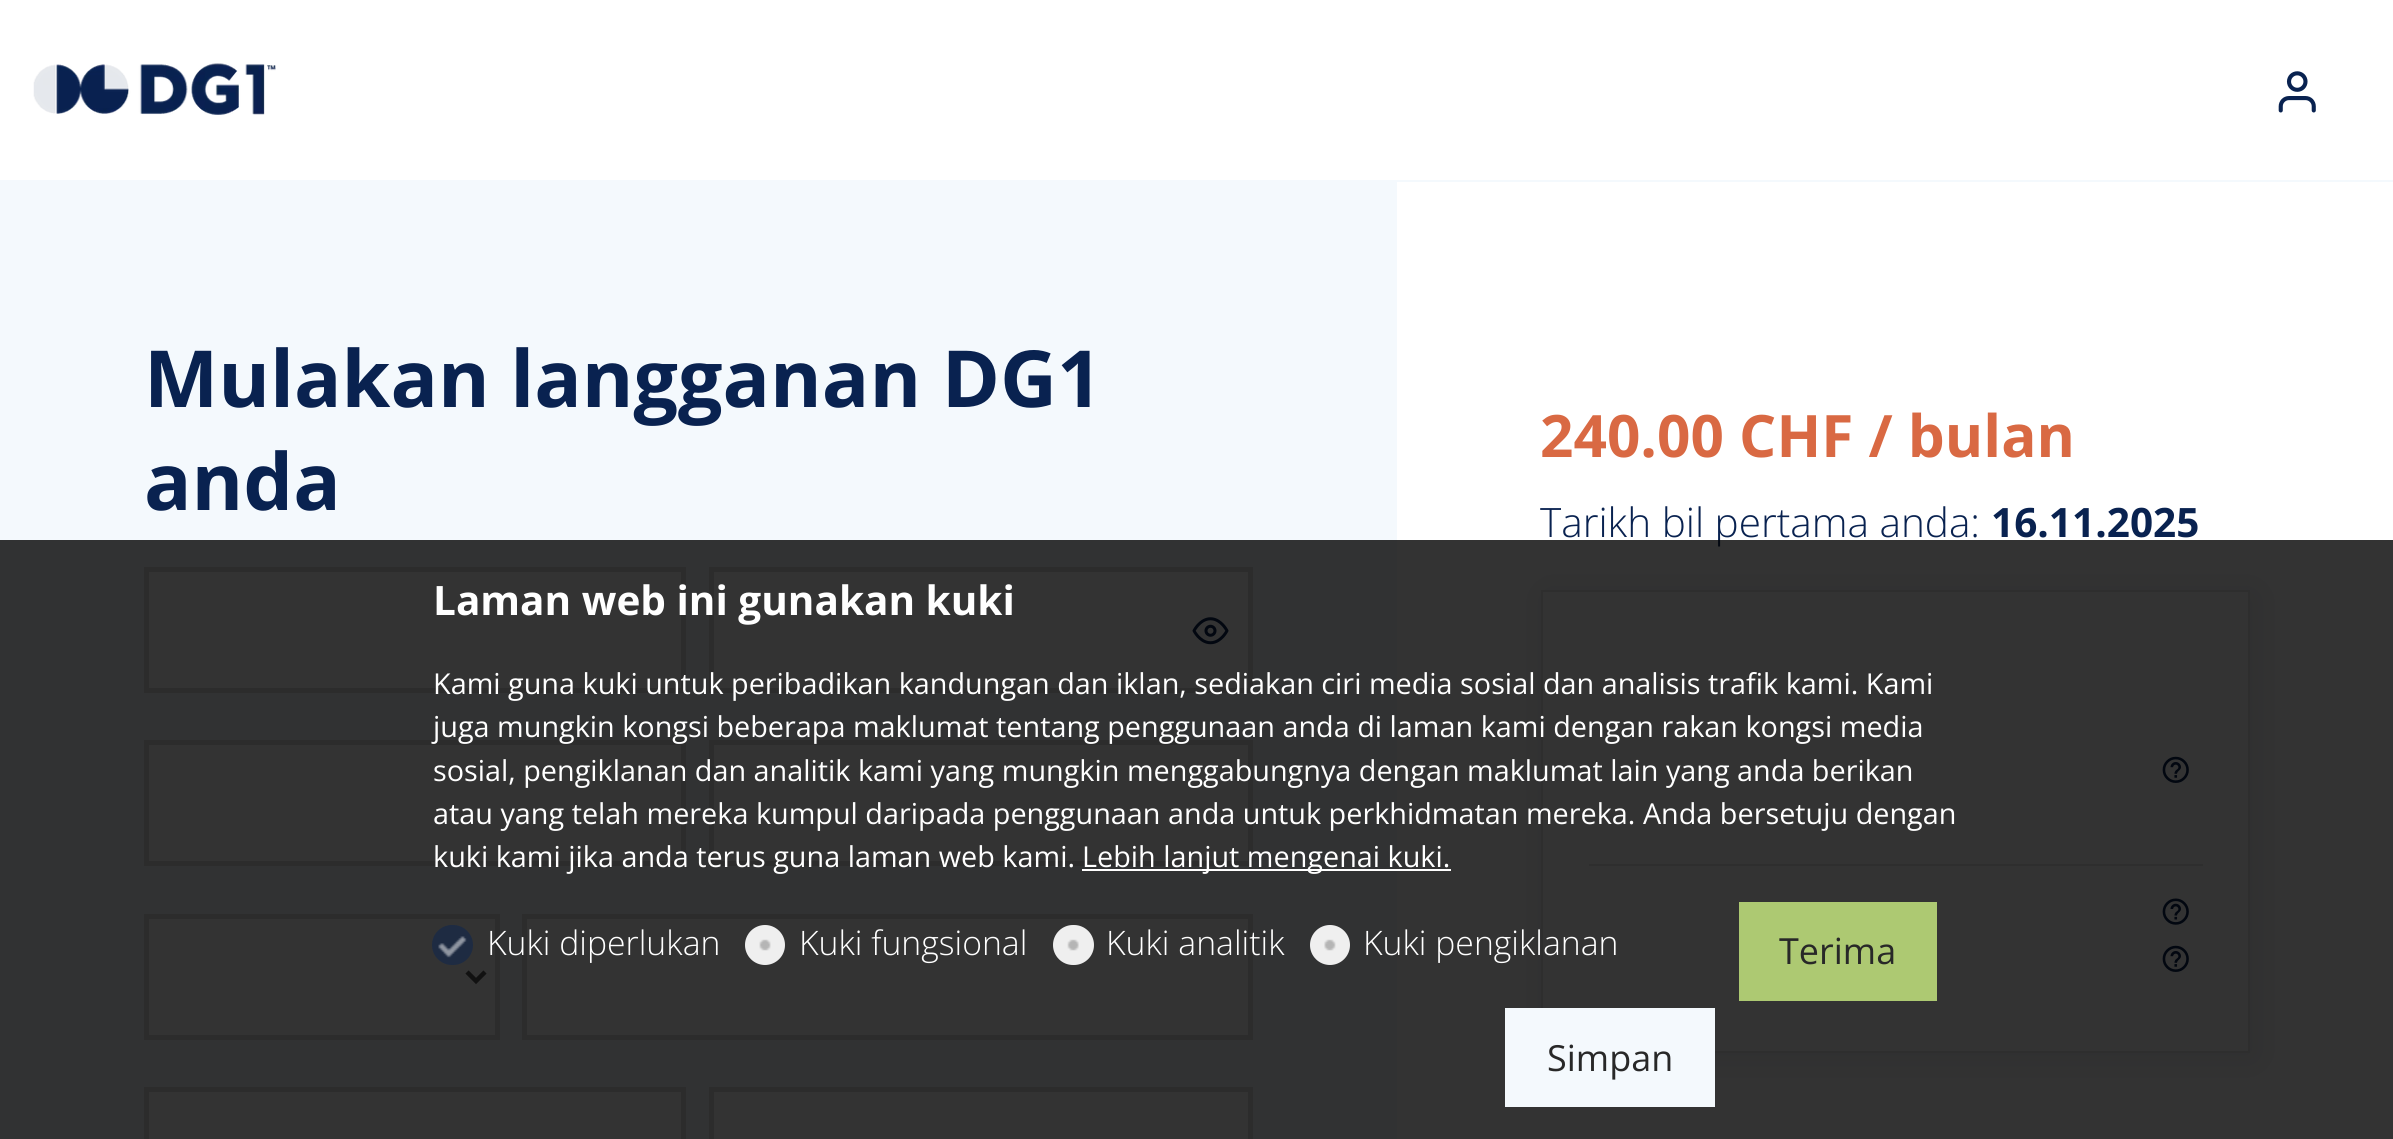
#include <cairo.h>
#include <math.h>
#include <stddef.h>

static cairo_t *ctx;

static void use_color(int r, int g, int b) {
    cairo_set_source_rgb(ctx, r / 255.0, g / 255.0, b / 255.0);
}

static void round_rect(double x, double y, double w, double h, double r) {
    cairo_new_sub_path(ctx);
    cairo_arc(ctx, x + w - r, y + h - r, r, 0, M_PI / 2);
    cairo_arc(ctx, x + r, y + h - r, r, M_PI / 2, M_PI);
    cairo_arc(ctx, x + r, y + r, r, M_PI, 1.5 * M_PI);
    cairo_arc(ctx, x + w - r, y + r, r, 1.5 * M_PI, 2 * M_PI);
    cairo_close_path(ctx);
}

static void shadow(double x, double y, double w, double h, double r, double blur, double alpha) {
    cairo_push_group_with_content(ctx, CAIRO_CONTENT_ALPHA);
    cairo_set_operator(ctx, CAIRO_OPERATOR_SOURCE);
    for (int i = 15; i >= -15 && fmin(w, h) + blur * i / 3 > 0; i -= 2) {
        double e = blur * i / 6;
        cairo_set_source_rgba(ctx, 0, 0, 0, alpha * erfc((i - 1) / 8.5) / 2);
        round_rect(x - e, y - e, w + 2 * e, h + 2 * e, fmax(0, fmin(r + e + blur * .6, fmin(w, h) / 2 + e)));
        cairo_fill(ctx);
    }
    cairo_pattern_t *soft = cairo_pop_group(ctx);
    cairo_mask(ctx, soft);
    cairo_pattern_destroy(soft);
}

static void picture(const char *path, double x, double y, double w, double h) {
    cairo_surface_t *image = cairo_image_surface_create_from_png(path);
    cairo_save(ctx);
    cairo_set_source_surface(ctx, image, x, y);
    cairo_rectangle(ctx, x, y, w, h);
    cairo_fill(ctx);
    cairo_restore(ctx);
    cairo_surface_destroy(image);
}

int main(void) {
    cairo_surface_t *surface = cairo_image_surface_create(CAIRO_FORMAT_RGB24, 2393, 1139);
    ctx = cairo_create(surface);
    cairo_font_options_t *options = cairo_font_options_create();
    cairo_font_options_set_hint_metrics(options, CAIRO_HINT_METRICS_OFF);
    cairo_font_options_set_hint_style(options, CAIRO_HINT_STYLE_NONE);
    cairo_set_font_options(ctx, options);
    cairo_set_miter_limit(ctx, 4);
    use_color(255, 255, 255);
    cairo_paint(ctx);
    picture("img1.png", 33, 63, 243, 52);
    picture("img2.png", 2278, 71, 38, 42);
    use_color(244, 249, 253);
    cairo_rectangle(ctx, 0, 180, 2393, 2);
    cairo_fill(ctx);
    cairo_rectangle(ctx, 0, 182, 1397, 957);
    cairo_fill(ctx);
    cairo_select_font_face(ctx, "Open Sans", CAIRO_FONT_SLANT_NORMAL, CAIRO_FONT_WEIGHT_BOLD);
    cairo_set_font_size(ctx, 78.75);
    use_color(9, 34, 80);
    cairo_move_to(ctx, 144, 407);
    cairo_show_text(ctx, "Mulakan langganan DG1");
    cairo_move_to(ctx, 144, 510);
    cairo_show_text(ctx, "anda");
    use_color(255, 255, 255);
    cairo_rectangle(ctx, 146.5, 569.5, 537, 121);
    cairo_fill_preserve(ctx);
    use_color(219, 219, 219);
    cairo_set_line_width(ctx, 5);
    cairo_stroke(ctx);
    use_color(255, 255, 255);
    cairo_rectangle(ctx, 711.5, 569.5, 539, 121);
    cairo_fill_preserve(ctx);
    use_color(219, 219, 219);
    cairo_stroke(ctx);
    picture("img3.png", 1192, 617, 37, 28);
    use_color(255, 255, 255);
    cairo_rectangle(ctx, 146.5, 742.5, 537, 121);
    cairo_fill_preserve(ctx);
    use_color(219, 219, 219);
    cairo_stroke(ctx);
    use_color(255, 255, 255);
    cairo_rectangle(ctx, 711.5, 742.5, 539, 121);
    cairo_fill_preserve(ctx);
    use_color(219, 219, 219);
    cairo_stroke(ctx);
    use_color(255, 255, 255);
    cairo_rectangle(ctx, 146.5, 916.5, 351, 121);
    cairo_fill_preserve(ctx);
    use_color(219, 219, 219);
    cairo_stroke(ctx);
    cairo_new_path(ctx);
    cairo_move_to(ctx, 467, 972);
    cairo_line_to(ctx, 476, 981);
    cairo_line_to(ctx, 485, 972);
    use_color(86, 86, 86);
    cairo_set_line_width(ctx, 4.5);
    cairo_stroke(ctx);
    use_color(255, 255, 255);
    cairo_rectangle(ctx, 524.5, 916.5, 726, 121);
    cairo_fill_preserve(ctx);
    use_color(219, 219, 219);
    cairo_set_line_width(ctx, 5);
    cairo_stroke(ctx);
    use_color(255, 255, 255);
    cairo_rectangle(ctx, 146.5, 1089.5, 537, 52);
    cairo_fill_preserve(ctx);
    use_color(219, 219, 219);
    cairo_stroke(ctx);
    use_color(255, 255, 255);
    cairo_rectangle(ctx, 711.5, 1089.5, 539, 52);
    cairo_fill_preserve(ctx);
    use_color(219, 219, 219);
    cairo_stroke(ctx);
    cairo_set_font_size(ctx, 58.5);
    use_color(217, 105, 67);
    cairo_move_to(ctx, 1540, 457);
    cairo_show_text(ctx, "240.00 CHF / bulan");
    cairo_select_font_face(ctx, "Open Sans Light", CAIRO_FONT_SLANT_NORMAL, CAIRO_FONT_WEIGHT_NORMAL);
    cairo_set_font_size(ctx, 40.5);
    use_color(9, 34, 80);
    cairo_move_to(ctx, 1540, 537);
    cairo_show_text(ctx, "Tarikh bil pertama anda:");
    cairo_select_font_face(ctx, "Open Sans", CAIRO_FONT_SLANT_NORMAL, CAIRO_FONT_WEIGHT_BOLD);
    cairo_move_to(ctx, 1991, 537);
    cairo_show_text(ctx, "16.11.2025");
    cairo_save(ctx);
    cairo_set_fill_rule(ctx, CAIRO_FILL_RULE_EVEN_ODD);
    cairo_new_path(ctx);
    cairo_move_to(ctx, 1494, 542);
    cairo_line_to(ctx, 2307, 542);
    cairo_line_to(ctx, 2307, 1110);
    cairo_line_to(ctx, 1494, 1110);
    cairo_close_path(ctx);
    cairo_move_to(ctx, 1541, 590);
    cairo_line_to(ctx, 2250, 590);
    cairo_line_to(ctx, 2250, 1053);
    cairo_line_to(ctx, 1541, 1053);
    cairo_close_path(ctx);
    cairo_clip(ctx);
    use_color(9, 34, 80);
    shadow(1546, 594, 709, 464, 0, 17, 0.1);
    cairo_restore(ctx);
    cairo_rectangle(ctx, 1542, 591, 707, 461);
    use_color(230, 230, 230);
    cairo_set_line_width(ctx, 2);
    cairo_stroke(ctx);
    picture("img4.png", 2162, 756, 27, 27);
    cairo_rectangle(ctx, 1589, 864, 614, 2);
    cairo_fill(ctx);
    picture("img5.png", 2162, 898, 27, 27);
    picture("img4.png", 2162, 945, 27, 27);
    cairo_set_source_rgba(ctx, 0, 0, 0, 0.8);
    cairo_rectangle(ctx, 0, 540, 2393, 599);
    cairo_fill(ctx);
    use_color(255, 255, 255);
    cairo_move_to(ctx, 433, 615);
    cairo_show_text(ctx, "Laman web ini gunakan kuki");
    cairo_select_font_face(ctx, "Open Sans", CAIRO_FONT_SLANT_NORMAL, CAIRO_FONT_WEIGHT_NORMAL);
    cairo_set_font_size(ctx, 28.8);
    cairo_move_to(ctx, 433, 694);
    cairo_show_text(ctx, "Kami guna kuki untuk peribadikan kandungan dan iklan, sediakan ciri media sosial dan analisis trafik kami. Kami");
    cairo_move_to(ctx, 433, 737);
    cairo_show_text(ctx, "juga mungkin kongsi beberapa maklumat tentang penggunaan anda di laman kami dengan rakan kongsi media");
    cairo_move_to(ctx, 433, 781);
    cairo_show_text(ctx, "sosial, pengiklanan dan analitik kami yang mungkin menggabungnya dengan maklumat lain yang anda berikan");
    cairo_move_to(ctx, 433, 824);
    cairo_show_text(ctx, "atau yang telah mereka kumpul daripada penggunaan anda untuk perkhidmatan mereka. Anda bersetuju dengan");
    cairo_move_to(ctx, 433, 867);
    cairo_show_text(ctx, "kuki kami jika anda terus guna laman web kami.");
    cairo_rectangle(ctx, 1082, 869, 369, 2);
    cairo_fill(ctx);
    cairo_move_to(ctx, 1082, 867);
    cairo_show_text(ctx, "Lebih lanjut mengenai kuki.");
    use_color(30, 43, 66);
    round_rect(432, 925, 41, 40, 20);
    cairo_fill(ctx);
    picture("img6.png", 438, 936, 29, 22);
    cairo_select_font_face(ctx, "Open Sans Light", CAIRO_FONT_SLANT_NORMAL, CAIRO_FONT_WEIGHT_NORMAL);
    cairo_set_font_size(ctx, 33.75);
    use_color(255, 255, 255);
    cairo_move_to(ctx, 487, 955);
    cairo_show_text(ctx, "Kuki diperlukan");
    use_color(239, 239, 239);
    cairo_new_path(ctx);
    cairo_arc(ctx, 765, 945, 20, 0, 2 * M_PI);
    cairo_fill(ctx);
    picture("img7.png", 759, 939, 12, 12);
    use_color(255, 255, 255);
    cairo_move_to(ctx, 799, 955);
    cairo_show_text(ctx, "Kuki fungsional");
    use_color(239, 239, 239);
    round_rect(1053, 925, 41, 40, 20);
    cairo_fill(ctx);
    picture("img8.png", 1067, 939, 12, 12);
    use_color(255, 255, 255);
    cairo_move_to(ctx, 1106, 955);
    cairo_show_text(ctx, "Kuki analitik");
    use_color(239, 239, 239);
    cairo_new_path(ctx);
    cairo_arc(ctx, 1330, 945, 20, 0, 2 * M_PI);
    cairo_fill(ctx);
    picture("img9.png", 1324, 939, 12, 12);
    use_color(255, 255, 255);
    cairo_move_to(ctx, 1363, 955);
    cairo_show_text(ctx, "Kuki pengiklanan");
    use_color(173, 201, 114);
    cairo_rectangle(ctx, 1739, 902, 198, 99);
    cairo_fill(ctx);
    cairo_select_font_face(ctx, "Open Sans", CAIRO_FONT_SLANT_NORMAL, CAIRO_FONT_WEIGHT_NORMAL);
    cairo_set_font_size(ctx, 36);
    use_color(40, 40, 40);
    cairo_move_to(ctx, 1779, 964);
    cairo_show_text(ctx, "Terima");
    use_color(244, 249, 253);
    cairo_rectangle(ctx, 1505, 1008, 210, 99);
    cairo_fill(ctx);
    use_color(40, 40, 40);
    cairo_move_to(ctx, 1547, 1071);
    cairo_show_text(ctx, "Simpan");
    cairo_surface_write_to_png(surface, "result.png");
    cairo_font_options_destroy(options);
    cairo_destroy(ctx);
    cairo_surface_destroy(surface);
    return 0;
}
